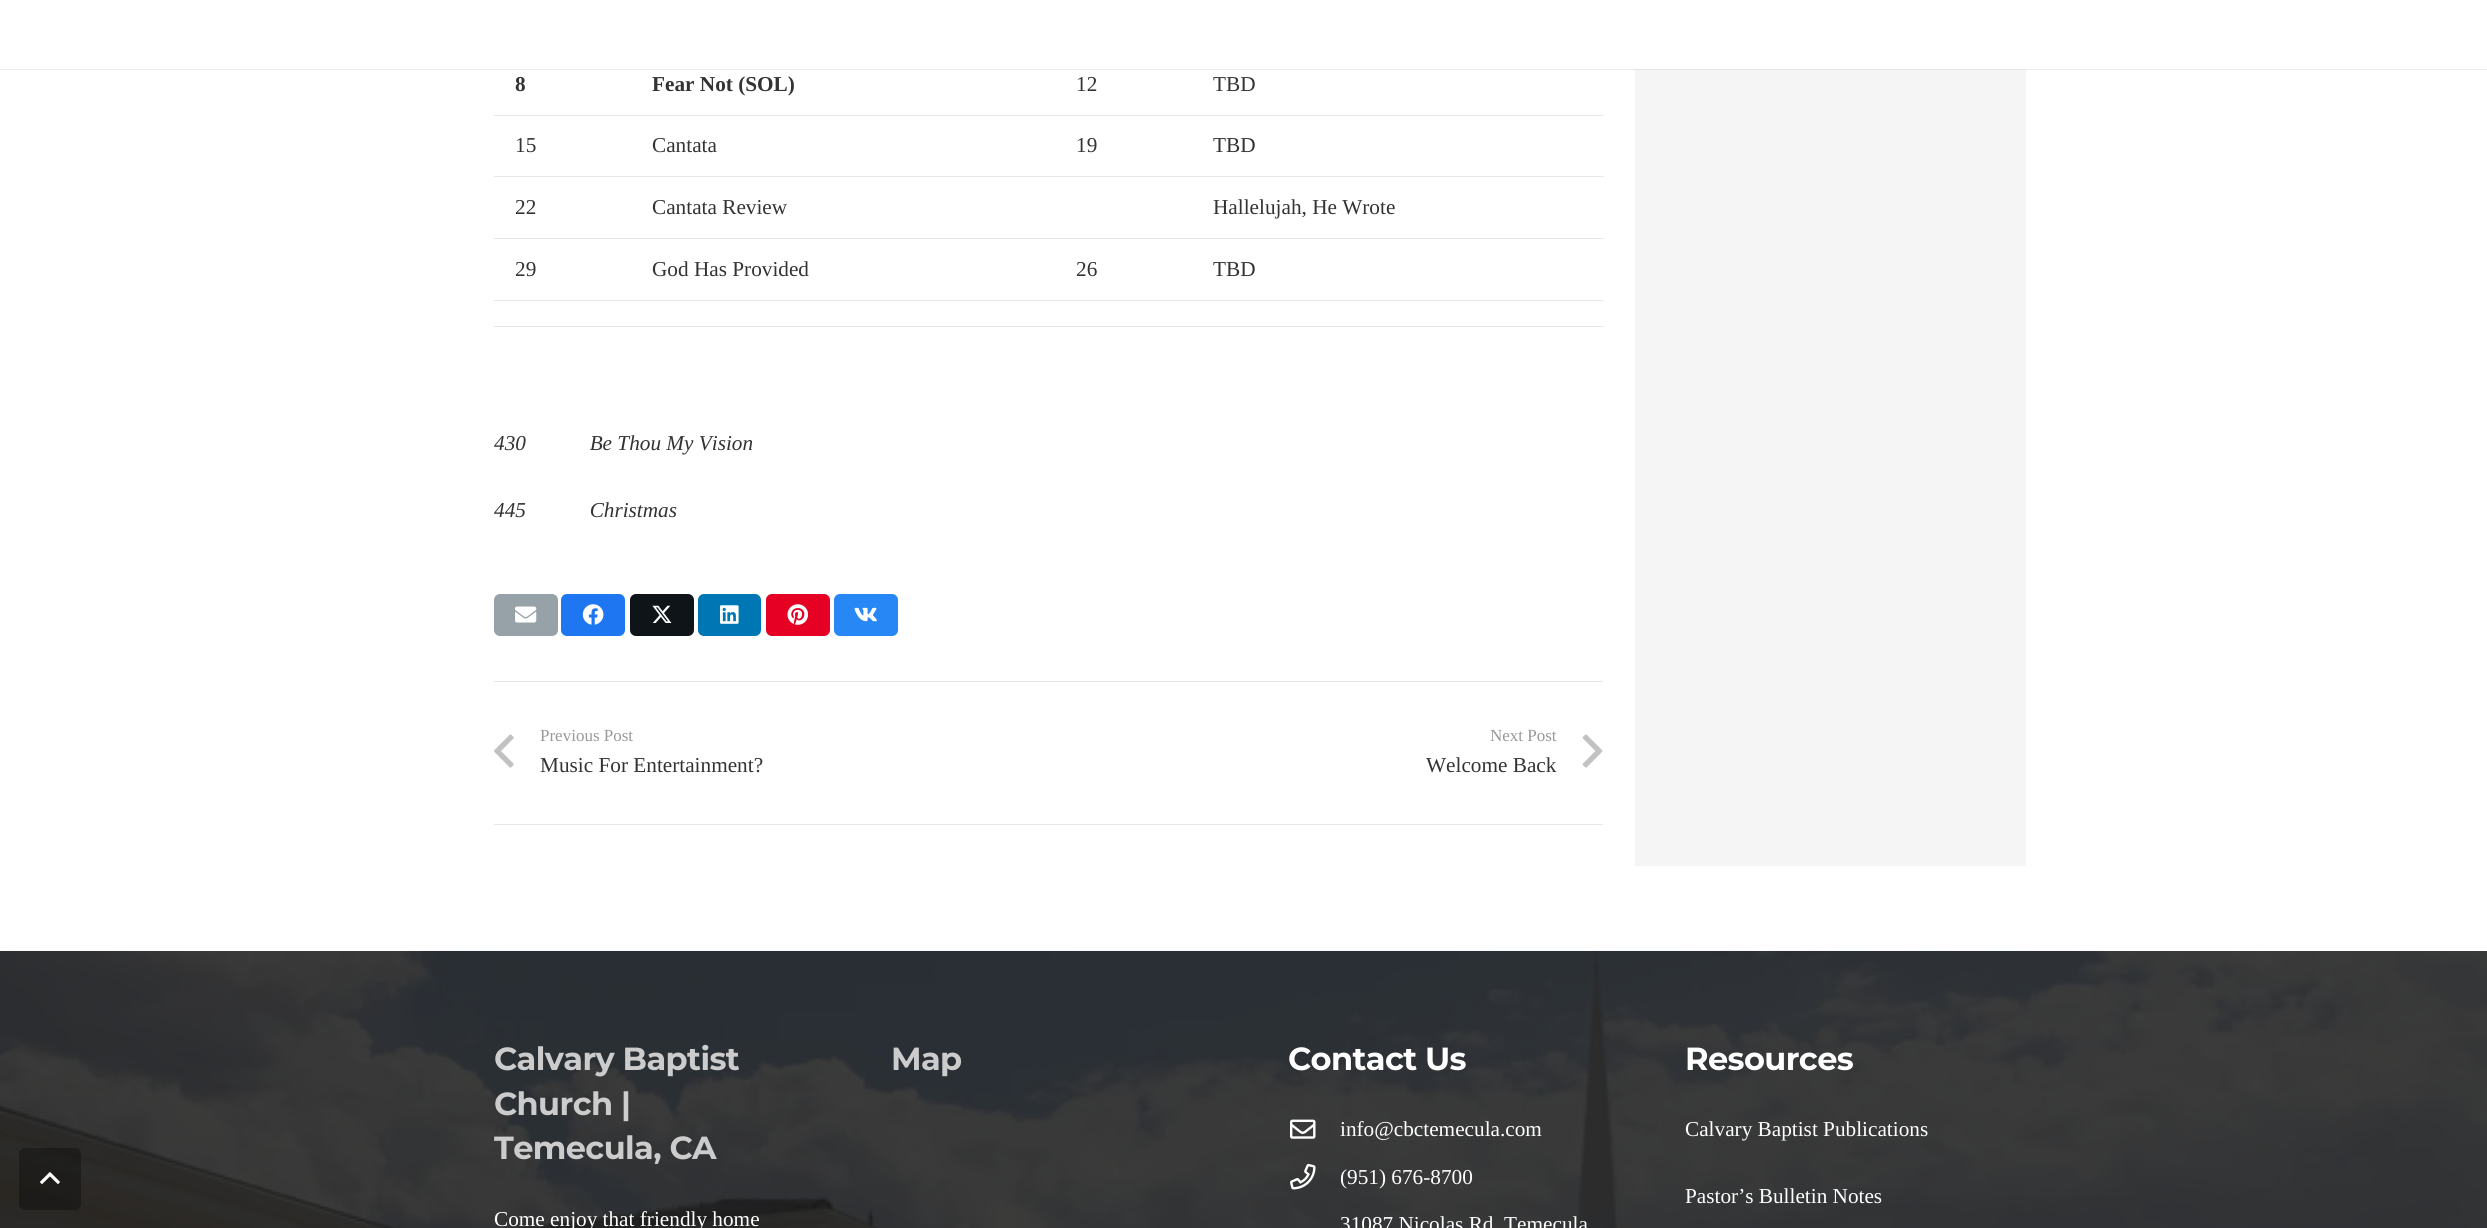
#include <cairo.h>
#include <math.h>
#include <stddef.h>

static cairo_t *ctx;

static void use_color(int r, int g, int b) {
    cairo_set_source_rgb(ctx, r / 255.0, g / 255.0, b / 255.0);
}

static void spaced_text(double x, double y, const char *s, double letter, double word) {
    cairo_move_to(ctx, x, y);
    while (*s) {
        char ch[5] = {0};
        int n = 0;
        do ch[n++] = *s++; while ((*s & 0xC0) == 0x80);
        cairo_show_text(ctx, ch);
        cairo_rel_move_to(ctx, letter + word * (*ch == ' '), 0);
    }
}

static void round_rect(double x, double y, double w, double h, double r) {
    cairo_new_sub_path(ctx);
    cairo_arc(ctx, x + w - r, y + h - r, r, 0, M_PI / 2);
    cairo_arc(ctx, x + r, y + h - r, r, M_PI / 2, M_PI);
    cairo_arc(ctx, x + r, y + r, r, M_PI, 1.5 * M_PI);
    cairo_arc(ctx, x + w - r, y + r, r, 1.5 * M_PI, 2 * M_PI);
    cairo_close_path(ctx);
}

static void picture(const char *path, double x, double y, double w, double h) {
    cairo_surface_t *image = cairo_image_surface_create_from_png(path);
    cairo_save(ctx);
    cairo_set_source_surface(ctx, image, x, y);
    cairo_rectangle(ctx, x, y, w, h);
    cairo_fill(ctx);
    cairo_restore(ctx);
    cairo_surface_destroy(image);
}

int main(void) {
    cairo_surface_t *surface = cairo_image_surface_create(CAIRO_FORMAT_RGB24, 2487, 1228);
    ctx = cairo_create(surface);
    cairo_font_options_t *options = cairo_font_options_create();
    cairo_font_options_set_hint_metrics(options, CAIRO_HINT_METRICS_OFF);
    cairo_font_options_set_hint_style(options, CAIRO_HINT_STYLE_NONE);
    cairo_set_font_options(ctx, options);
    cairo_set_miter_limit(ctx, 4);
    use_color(255, 255, 255);
    cairo_paint(ctx);
    use_color(245, 245, 245);
    cairo_rectangle(ctx, 1635, 69, 391, 797);
    cairo_fill(ctx);
    cairo_set_source_rgba(ctx, 0, 0, 0, 0.08);
    cairo_new_path(ctx);
    cairo_move_to(ctx, 0, 69);
    cairo_line_to(ctx, 0, 70);
    cairo_line_to(ctx, 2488, 70);
    cairo_line_to(ctx, 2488, 1);
    cairo_line_to(ctx, 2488, 69);
    cairo_close_path(ctx);
    cairo_fill(ctx);
    cairo_select_font_face(ctx, "Liberation Serif", CAIRO_FONT_SLANT_NORMAL, CAIRO_FONT_WEIGHT_BOLD);
    cairo_set_font_size(ctx, 21.25);
    use_color(51, 51, 51);
    cairo_move_to(ctx, 515, 91);
    cairo_show_text(ctx, "8");
    cairo_move_to(ctx, 652, 91);
    cairo_show_text(ctx, "Fear Not (SOL)");
    cairo_select_font_face(ctx, "Liberation Serif", CAIRO_FONT_SLANT_NORMAL, CAIRO_FONT_WEIGHT_NORMAL);
    cairo_move_to(ctx, 1076, 91);
    cairo_show_text(ctx, "12");
    use_color(232, 232, 232);
    cairo_rectangle(ctx, 494, 115, 1110, 1);
    cairo_fill(ctx);
    use_color(51, 51, 51);
    cairo_move_to(ctx, 1213, 91);
    cairo_show_text(ctx, "TBD");
    cairo_move_to(ctx, 515, 152);
    cairo_show_text(ctx, "15");
    cairo_move_to(ctx, 652, 152);
    cairo_show_text(ctx, "Cantata");
    cairo_move_to(ctx, 1076, 152);
    cairo_show_text(ctx, "19");
    use_color(232, 232, 232);
    cairo_rectangle(ctx, 494, 176, 1110, 1);
    cairo_fill(ctx);
    use_color(51, 51, 51);
    cairo_move_to(ctx, 1213, 152);
    cairo_show_text(ctx, "TBD");
    cairo_move_to(ctx, 515, 214);
    cairo_show_text(ctx, "22");
    cairo_move_to(ctx, 652, 214);
    cairo_show_text(ctx, "Cantata Review");
    use_color(232, 232, 232);
    cairo_rectangle(ctx, 494, 238, 1110, 1);
    cairo_fill(ctx);
    use_color(51, 51, 51);
    cairo_move_to(ctx, 1213, 214);
    cairo_show_text(ctx, "Hallelujah, He Wrote");
    cairo_move_to(ctx, 515, 276);
    cairo_show_text(ctx, "29");
    cairo_move_to(ctx, 652, 276);
    cairo_show_text(ctx, "God Has Provided");
    cairo_move_to(ctx, 1076, 276);
    cairo_show_text(ctx, "26");
    use_color(232, 232, 232);
    cairo_rectangle(ctx, 494, 300, 1110, 1);
    cairo_fill(ctx);
    use_color(51, 51, 51);
    cairo_move_to(ctx, 1213, 276);
    cairo_show_text(ctx, "TBD");
    use_color(232, 232, 232);
    cairo_rectangle(ctx, 494, 326, 1110, 1);
    cairo_fill(ctx);
    cairo_select_font_face(ctx, "Liberation Serif", CAIRO_FONT_SLANT_ITALIC, CAIRO_FONT_WEIGHT_NORMAL);
    use_color(51, 51, 51);
    cairo_move_to(ctx, 494, 450);
    cairo_show_text(ctx, "430            Be Thou My Vision");
    cairo_move_to(ctx, 494, 517);
    cairo_show_text(ctx, "445            Christmas");
    use_color(150, 162, 168);
    round_rect(494, 594, 64, 42, 6);
    cairo_fill(ctx);
    picture("img1.png", 515, 606, 22, 17);
    use_color(30, 119, 240);
    round_rect(561, 594, 64, 42, 6);
    cairo_fill(ctx);
    picture("img2.png", 582, 604, 22, 21);
    use_color(15, 20, 25);
    round_rect(630, 594, 64, 42, 6);
    cairo_fill(ctx);
    picture("img3.png", 652, 605, 20, 18);
    use_color(0, 119, 181);
    round_rect(698, 594, 63, 42, 6);
    cairo_fill(ctx);
    picture("img4.png", 720, 605, 19, 19);
    use_color(230, 0, 35);
    round_rect(766, 594, 64, 42, 6);
    cairo_fill(ctx);
    picture("img5.png", 787, 604, 22, 21);
    use_color(39, 135, 245);
    round_rect(834, 594, 64, 42, 6);
    cairo_fill(ctx);
    picture("img6.png", 854, 607, 23, 15);
    use_color(232, 232, 232);
    cairo_rectangle(ctx, 494, 681, 1109, 1);
    cairo_fill(ctx);
    picture("img7.png", 494, 734, 20, 34);
    cairo_select_font_face(ctx, "Liberation Serif", CAIRO_FONT_SLANT_NORMAL, CAIRO_FONT_WEIGHT_NORMAL);
    cairo_set_font_size(ctx, 17);
    use_color(153, 153, 153);
    cairo_move_to(ctx, 540, 741);
    cairo_show_text(ctx, "Previous Post");
    cairo_set_font_size(ctx, 21.25);
    use_color(51, 51, 51);
    cairo_move_to(ctx, 540, 772);
    cairo_show_text(ctx, "Music For Entertainment?");
    cairo_set_font_size(ctx, 17);
    use_color(153, 153, 153);
    cairo_move_to(ctx, 1490, 741);
    cairo_show_text(ctx, "Next Post");
    picture("img8.png", 1582, 734, 21, 34);
    cairo_set_font_size(ctx, 21.25);
    use_color(51, 51, 51);
    cairo_move_to(ctx, 1426, 772);
    cairo_show_text(ctx, "Welcome Back");
    use_color(232, 232, 232);
    cairo_rectangle(ctx, 494, 824, 1109, 1);
    cairo_fill(ctx);
    picture("img10.png", 0, 950, 2487, 278);
    cairo_set_source_rgba(ctx, 0, 0, 0, 0.3);
    round_rect(19, 1148, 62, 62, 6);
    cairo_fill(ctx);
    picture("img9.png", 40, 1172, 20, 12);
    cairo_select_font_face(ctx, "Montserrat Thin", CAIRO_FONT_SLANT_NORMAL, CAIRO_FONT_WEIGHT_NORMAL);
    cairo_set_font_size(ctx, 32);
    use_color(204, 204, 204);
    spaced_text(494, 1070, "Calvary Baptist", -0.6, 0);
    spaced_text(494, 1115, "Church |", -0.6, 0);
    spaced_text(494, 1159, "Temecula, CA", -0.6, 0);
    cairo_select_font_face(ctx, "Liberation Serif", CAIRO_FONT_SLANT_NORMAL, CAIRO_FONT_WEIGHT_NORMAL);
    cairo_set_font_size(ctx, 21.25);
    use_color(255, 255, 255);
    cairo_move_to(ctx, 494, 1226);
    cairo_show_text(ctx, "Come enjoy that friendly home");
    cairo_select_font_face(ctx, "Montserrat Thin", CAIRO_FONT_SLANT_NORMAL, CAIRO_FONT_WEIGHT_NORMAL);
    cairo_set_font_size(ctx, 32);
    use_color(204, 204, 204);
    spaced_text(891, 1070, "Map", -0.6, 0);
    use_color(255, 255, 255);
    spaced_text(1288, 1070, "Contact Us", -0.6, 0);
    picture("img11.png", 1290, 1119, 26, 20);
    cairo_select_font_face(ctx, "Liberation Serif", CAIRO_FONT_SLANT_NORMAL, CAIRO_FONT_WEIGHT_NORMAL);
    cairo_set_font_size(ctx, 21.25);
    cairo_move_to(ctx, 1340, 1136);
    cairo_show_text(ctx, "info@cbctemecula.com");
    picture("img12.png", 1290, 1163, 26, 27);
    cairo_move_to(ctx, 1340, 1184);
    cairo_show_text(ctx, "(951) 676-8700");
    cairo_move_to(ctx, 1340, 1231);
    cairo_show_text(ctx, "31087 Nicolas Rd. Temecula");
    cairo_select_font_face(ctx, "Montserrat Thin", CAIRO_FONT_SLANT_NORMAL, CAIRO_FONT_WEIGHT_NORMAL);
    cairo_set_font_size(ctx, 32);
    spaced_text(1685, 1070, "Resources", -0.6, 0);
    cairo_select_font_face(ctx, "Liberation Serif", CAIRO_FONT_SLANT_NORMAL, CAIRO_FONT_WEIGHT_NORMAL);
    cairo_set_font_size(ctx, 21.25);
    cairo_move_to(ctx, 1685, 1136);
    cairo_show_text(ctx, "Calvary Baptist Publications");
    cairo_move_to(ctx, 1685, 1203);
    cairo_show_text(ctx, "Pastor’s Bulletin Notes");
    cairo_surface_write_to_png(surface, "result.png");
    cairo_font_options_destroy(options);
    cairo_destroy(ctx);
    cairo_surface_destroy(surface);
    return 0;
}
